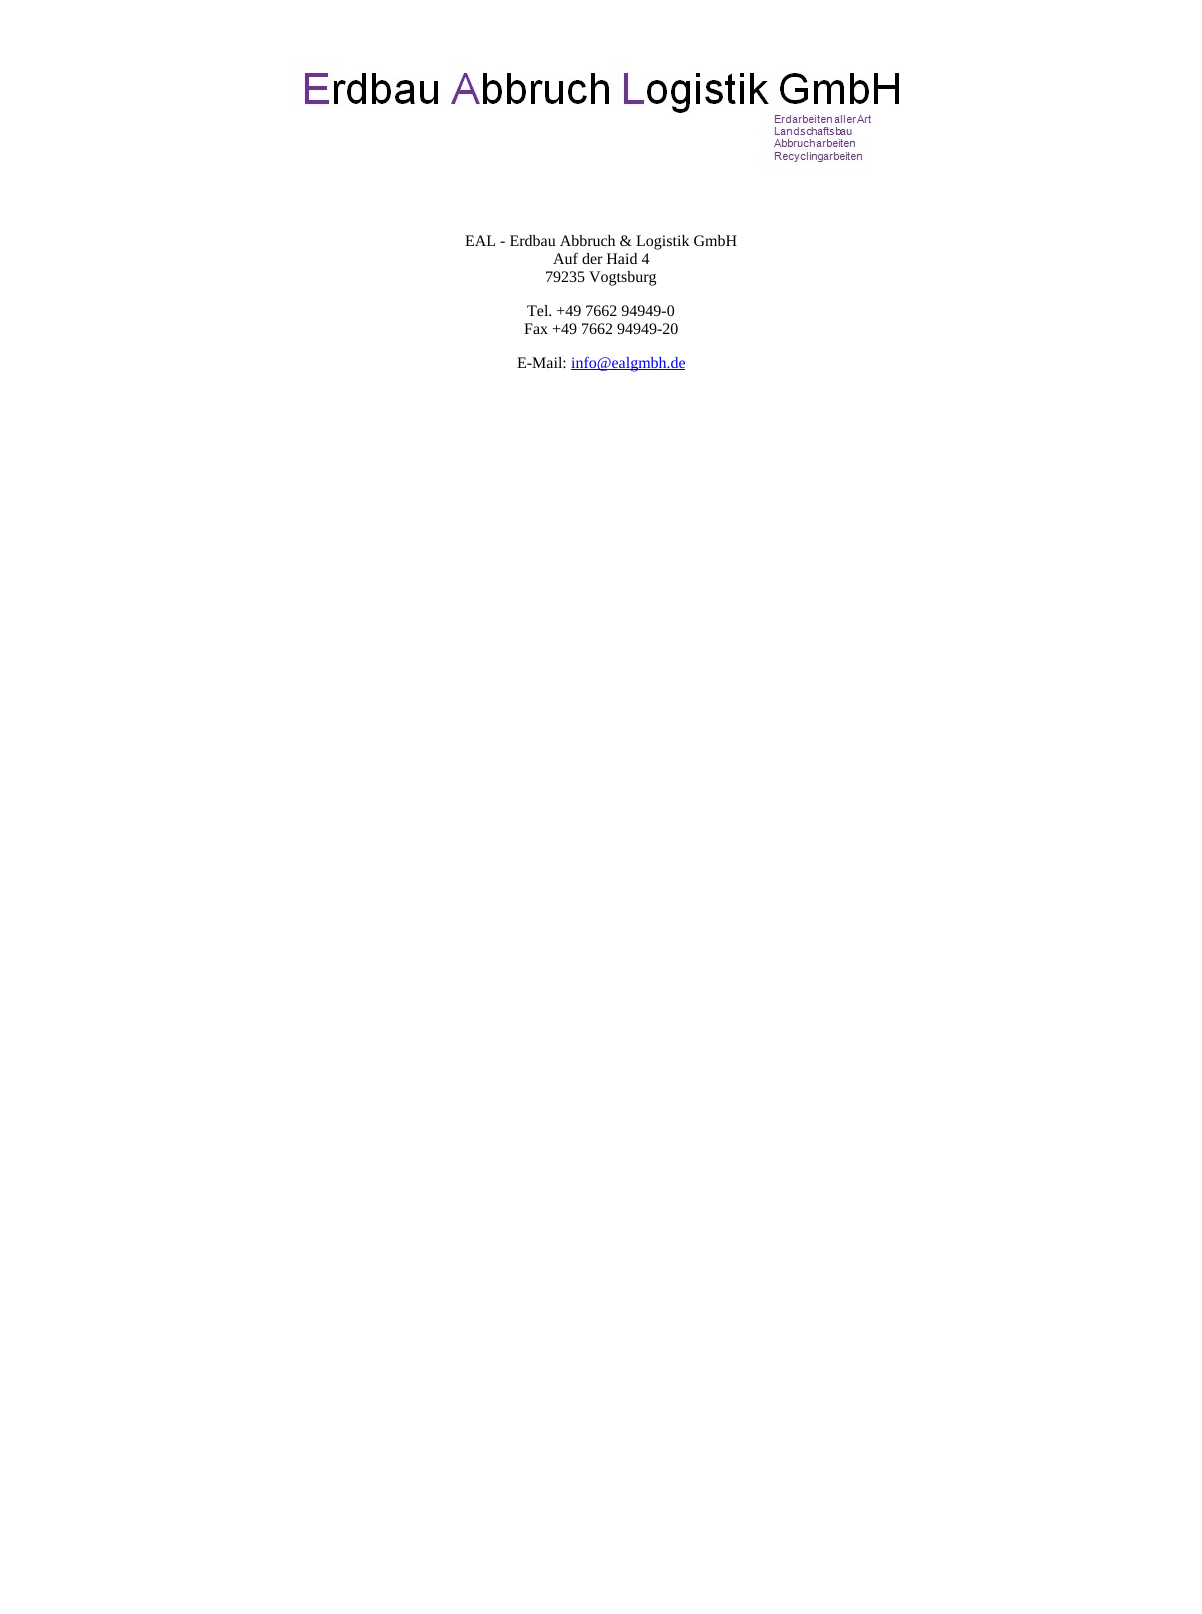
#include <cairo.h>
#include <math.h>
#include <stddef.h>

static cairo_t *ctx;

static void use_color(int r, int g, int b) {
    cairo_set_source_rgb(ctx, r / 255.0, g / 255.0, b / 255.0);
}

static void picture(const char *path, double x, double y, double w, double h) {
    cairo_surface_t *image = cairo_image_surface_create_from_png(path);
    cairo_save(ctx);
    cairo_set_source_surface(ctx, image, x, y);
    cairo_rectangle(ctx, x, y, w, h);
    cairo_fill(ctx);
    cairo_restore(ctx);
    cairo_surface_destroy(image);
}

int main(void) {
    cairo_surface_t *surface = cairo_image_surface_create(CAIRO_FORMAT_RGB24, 1202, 1614);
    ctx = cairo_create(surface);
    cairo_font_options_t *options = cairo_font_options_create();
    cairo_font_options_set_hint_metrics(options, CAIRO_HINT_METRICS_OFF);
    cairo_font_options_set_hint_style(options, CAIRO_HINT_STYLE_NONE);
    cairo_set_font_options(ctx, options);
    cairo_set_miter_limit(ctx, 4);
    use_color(255, 255, 255);
    cairo_paint(ctx);
    picture("img1.png", 295, 59, 605, 112);
    cairo_select_font_face(ctx, "Liberation Serif", CAIRO_FONT_SLANT_NORMAL, CAIRO_FONT_WEIGHT_NORMAL);
    cairo_set_font_size(ctx, 16);
    use_color(0, 0, 0);
    cairo_move_to(ctx, 465, 246);
    cairo_show_text(ctx, "EAL - Erdbau Abbruch & Logistik GmbH");
    cairo_move_to(ctx, 553, 264);
    cairo_show_text(ctx, "Auf der Haid 4");
    cairo_move_to(ctx, 545, 282);
    cairo_show_text(ctx, "79235 Vogtsburg");
    cairo_move_to(ctx, 527, 316);
    cairo_show_text(ctx, "Tel. +49 7662 94949-0");
    cairo_move_to(ctx, 524, 334);
    cairo_show_text(ctx, "Fax +49 7662 94949-20");
    cairo_move_to(ctx, 517, 368);
    cairo_show_text(ctx, "E-Mail:");
    use_color(0, 0, 238);
    cairo_rectangle(ctx, 571, 369, 114, 1);
    cairo_fill(ctx);
    cairo_move_to(ctx, 571, 368);
    cairo_show_text(ctx, "info@ealgmbh.de");
    cairo_surface_write_to_png(surface, "result.png");
    cairo_font_options_destroy(options);
    cairo_destroy(ctx);
    cairo_surface_destroy(surface);
    return 0;
}
